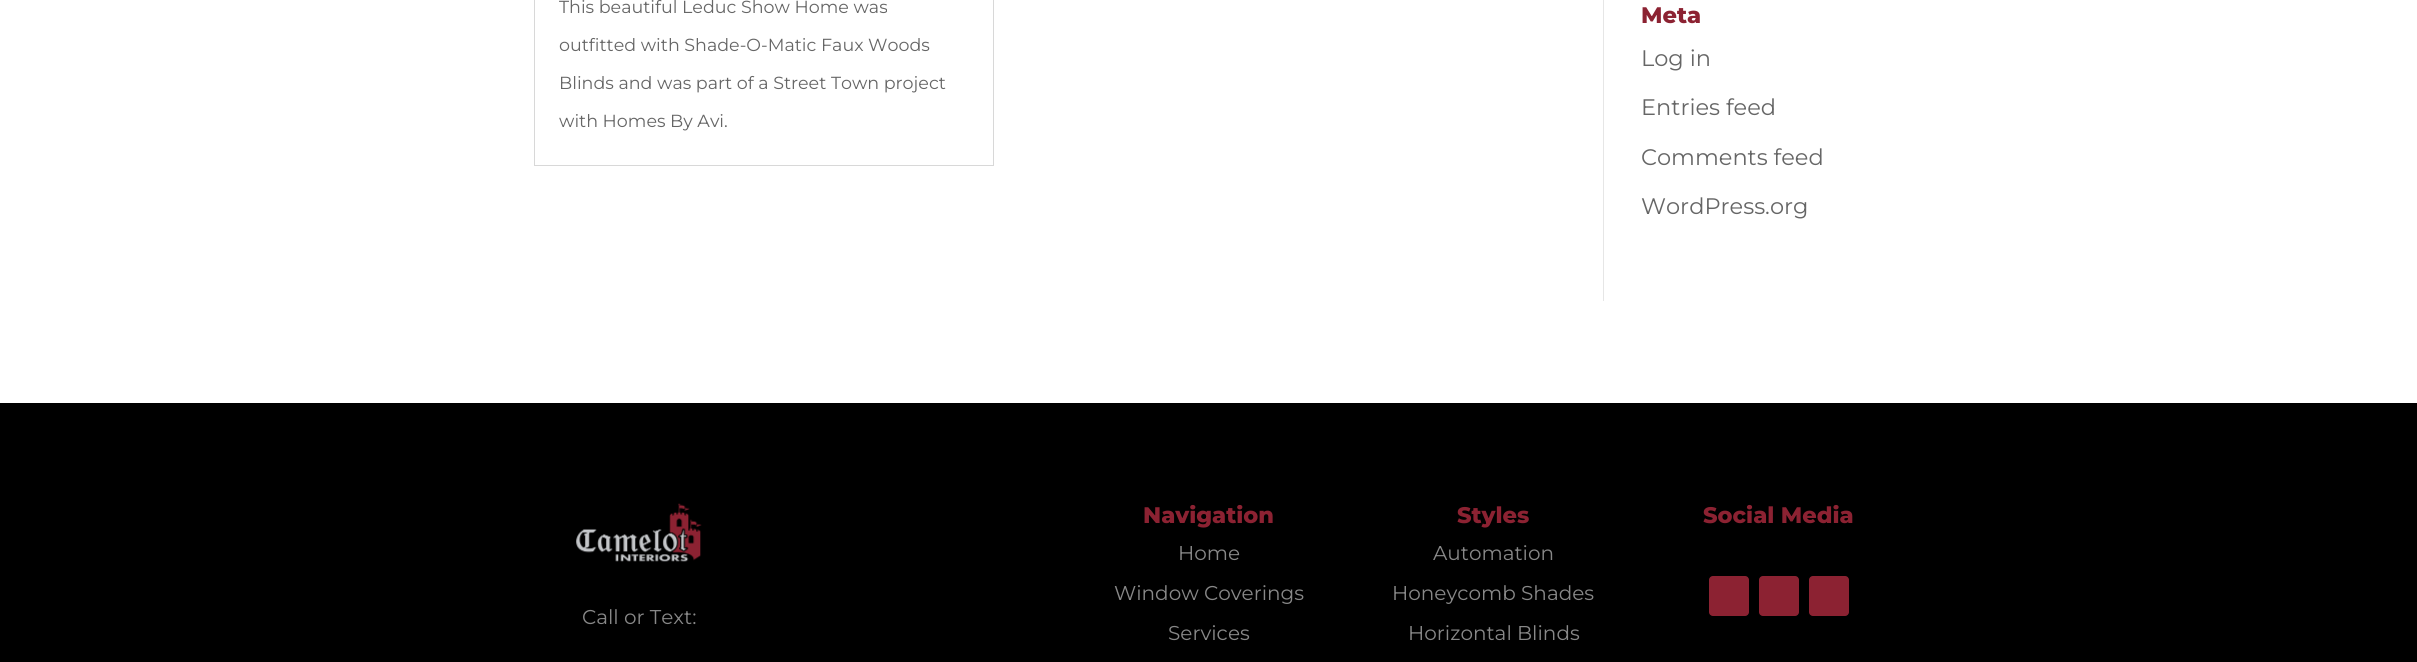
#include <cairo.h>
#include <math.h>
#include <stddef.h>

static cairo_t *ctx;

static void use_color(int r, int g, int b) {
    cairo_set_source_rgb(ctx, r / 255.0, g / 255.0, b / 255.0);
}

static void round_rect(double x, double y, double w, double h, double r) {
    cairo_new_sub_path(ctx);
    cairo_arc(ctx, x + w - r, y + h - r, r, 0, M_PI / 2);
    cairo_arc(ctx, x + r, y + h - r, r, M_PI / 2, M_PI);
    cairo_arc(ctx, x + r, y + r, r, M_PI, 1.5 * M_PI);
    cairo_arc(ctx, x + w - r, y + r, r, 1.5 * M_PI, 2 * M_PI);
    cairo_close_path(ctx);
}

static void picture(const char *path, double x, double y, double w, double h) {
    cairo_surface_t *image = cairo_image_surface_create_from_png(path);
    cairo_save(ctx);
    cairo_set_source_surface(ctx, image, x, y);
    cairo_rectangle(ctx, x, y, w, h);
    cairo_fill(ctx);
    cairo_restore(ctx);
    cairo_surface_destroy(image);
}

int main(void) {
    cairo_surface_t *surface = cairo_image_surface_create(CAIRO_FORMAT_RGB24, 2417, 662);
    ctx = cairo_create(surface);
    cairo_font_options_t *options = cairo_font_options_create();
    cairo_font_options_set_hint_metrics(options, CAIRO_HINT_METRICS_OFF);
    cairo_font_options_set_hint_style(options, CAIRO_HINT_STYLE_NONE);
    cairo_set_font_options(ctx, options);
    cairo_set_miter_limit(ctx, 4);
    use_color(255, 255, 255);
    cairo_paint(ctx);
    cairo_rectangle(ctx, 534.5, -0.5, 459, 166);
    use_color(216, 216, 216);
    cairo_set_line_width(ctx, 1);
    cairo_stroke(ctx);
    cairo_select_font_face(ctx, "Montserrat", CAIRO_FONT_SLANT_NORMAL, CAIRO_FONT_WEIGHT_NORMAL);
    cairo_set_font_size(ctx, 17.5);
    use_color(102, 102, 102);
    cairo_move_to(ctx, 559, 13);
    cairo_show_text(ctx, "This beautiful Leduc Show Home was");
    cairo_move_to(ctx, 559, 51);
    cairo_show_text(ctx, "outfitted with Shade-O-Matic Faux Woods");
    cairo_move_to(ctx, 559, 89);
    cairo_show_text(ctx, "Blinds and was part of a Street Town project");
    cairo_move_to(ctx, 559, 127);
    cairo_show_text(ctx, "with Homes By Avi.");
    use_color(230, 230, 230);
    cairo_rectangle(ctx, 1603, 0, 1, 301);
    cairo_fill(ctx);
    cairo_select_font_face(ctx, "Montserrat ExtraBold", CAIRO_FONT_SLANT_NORMAL, CAIRO_FONT_WEIGHT_NORMAL);
    cairo_set_font_size(ctx, 22.5);
    use_color(140, 34, 50);
    cairo_move_to(ctx, 1641, 23);
    cairo_show_text(ctx, "Meta");
    cairo_select_font_face(ctx, "Montserrat", CAIRO_FONT_SLANT_NORMAL, CAIRO_FONT_WEIGHT_NORMAL);
    use_color(102, 102, 102);
    cairo_move_to(ctx, 1641, 66);
    cairo_show_text(ctx, "Log in");
    cairo_move_to(ctx, 1641, 115);
    cairo_show_text(ctx, "Entries feed");
    cairo_move_to(ctx, 1641, 165);
    cairo_show_text(ctx, "Comments feed");
    cairo_move_to(ctx, 1641, 214);
    cairo_show_text(ctx, "WordPress.org");
    use_color(0, 0, 0);
    cairo_rectangle(ctx, 0, 403, 2417, 259);
    cairo_fill(ctx);
    picture("img1.png", 576, 503, 126, 59);
    cairo_set_font_size(ctx, 20);
    use_color(136, 136, 136);
    cairo_move_to(ctx, 582, 624);
    cairo_show_text(ctx, "Call or Text:");
    cairo_select_font_face(ctx, "Montserrat ExtraBold", CAIRO_FONT_SLANT_NORMAL, CAIRO_FONT_WEIGHT_NORMAL);
    cairo_set_font_size(ctx, 22.5);
    use_color(140, 34, 50);
    cairo_move_to(ctx, 1143, 523);
    cairo_show_text(ctx, "Navigation");
    cairo_select_font_face(ctx, "Montserrat", CAIRO_FONT_SLANT_NORMAL, CAIRO_FONT_WEIGHT_NORMAL);
    cairo_set_font_size(ctx, 20);
    use_color(136, 136, 136);
    cairo_move_to(ctx, 1178, 560);
    cairo_show_text(ctx, "Home");
    cairo_move_to(ctx, 1114, 600);
    cairo_show_text(ctx, "Window Coverings");
    cairo_move_to(ctx, 1168, 640);
    cairo_show_text(ctx, "Services");
    cairo_select_font_face(ctx, "Montserrat ExtraBold", CAIRO_FONT_SLANT_NORMAL, CAIRO_FONT_WEIGHT_NORMAL);
    cairo_set_font_size(ctx, 22.5);
    use_color(140, 34, 50);
    cairo_move_to(ctx, 1457, 523);
    cairo_show_text(ctx, "Styles");
    cairo_select_font_face(ctx, "Montserrat", CAIRO_FONT_SLANT_NORMAL, CAIRO_FONT_WEIGHT_NORMAL);
    cairo_set_font_size(ctx, 20);
    use_color(136, 136, 136);
    cairo_move_to(ctx, 1433, 560);
    cairo_show_text(ctx, "Automation");
    cairo_move_to(ctx, 1392, 600);
    cairo_show_text(ctx, "Honeycomb Shades");
    cairo_move_to(ctx, 1408, 640);
    cairo_show_text(ctx, "Horizontal Blinds");
    cairo_select_font_face(ctx, "Montserrat ExtraBold", CAIRO_FONT_SLANT_NORMAL, CAIRO_FONT_WEIGHT_NORMAL);
    cairo_set_font_size(ctx, 22.5);
    use_color(140, 34, 50);
    cairo_move_to(ctx, 1703, 523);
    cairo_show_text(ctx, "Social Media");
    round_rect(1709, 576, 40, 40, 4);
    cairo_fill(ctx);
    round_rect(1759, 576, 40, 40, 4);
    cairo_fill(ctx);
    round_rect(1809, 576, 40, 40, 4);
    cairo_fill(ctx);
    cairo_surface_write_to_png(surface, "result.png");
    cairo_font_options_destroy(options);
    cairo_destroy(ctx);
    cairo_surface_destroy(surface);
    return 0;
}
